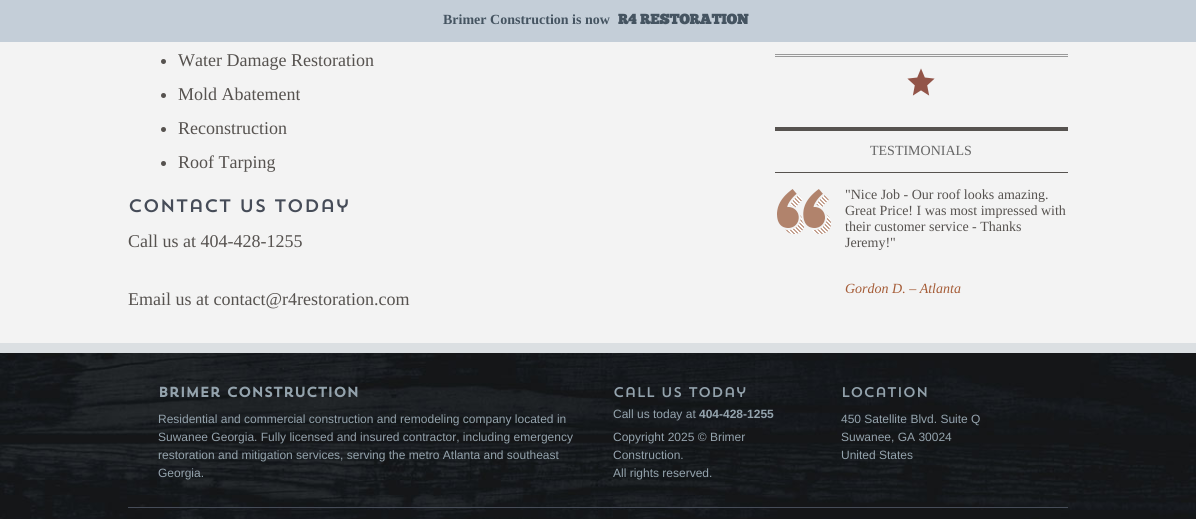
#include <cairo.h>
#include <math.h>
#include <stddef.h>

static cairo_t *ctx;

static void use_color(int r, int g, int b) {
    cairo_set_source_rgb(ctx, r / 255.0, g / 255.0, b / 255.0);
}

static void picture(const char *path, double x, double y, double w, double h) {
    cairo_surface_t *image = cairo_image_surface_create_from_png(path);
    cairo_save(ctx);
    cairo_set_source_surface(ctx, image, x, y);
    cairo_rectangle(ctx, x, y, w, h);
    cairo_fill(ctx);
    cairo_restore(ctx);
    cairo_surface_destroy(image);
}

int main(void) {
    cairo_surface_t *surface = cairo_image_surface_create(CAIRO_FORMAT_RGB24, 1196, 519);
    ctx = cairo_create(surface);
    cairo_font_options_t *options = cairo_font_options_create();
    cairo_font_options_set_hint_metrics(options, CAIRO_HINT_METRICS_OFF);
    cairo_font_options_set_hint_style(options, CAIRO_HINT_STYLE_NONE);
    cairo_set_font_options(ctx, options);
    cairo_set_miter_limit(ctx, 4);
    use_color(243, 243, 243);
    cairo_paint(ctx);
    use_color(196, 206, 216);
    cairo_rectangle(ctx, 0, 0, 1196, 42);
    cairo_fill(ctx);
    cairo_select_font_face(ctx, "Liberation Serif", CAIRO_FONT_SLANT_NORMAL, CAIRO_FONT_WEIGHT_BOLD);
    cairo_set_font_size(ctx, 14);
    use_color(69, 84, 97);
    cairo_move_to(ctx, 443, 24);
    cairo_show_text(ctx, "Brimer Construction is now");
    cairo_select_font_face(ctx, "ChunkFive", CAIRO_FONT_SLANT_NORMAL, CAIRO_FONT_WEIGHT_BOLD);
    cairo_move_to(ctx, 618, 24);
    cairo_show_text(ctx, "R4 RESTORATION");
    use_color(86, 82, 79);
    cairo_new_path(ctx);
    cairo_arc(ctx, 163.5, 61.5, 2.5, 0, 2 * M_PI);
    cairo_fill(ctx);
    cairo_select_font_face(ctx, "Liberation Serif", CAIRO_FONT_SLANT_NORMAL, CAIRO_FONT_WEIGHT_NORMAL);
    cairo_set_font_size(ctx, 18);
    cairo_move_to(ctx, 178, 66);
    cairo_show_text(ctx, "Water Damage Restoration");
    cairo_new_path(ctx);
    cairo_arc(ctx, 163.5, 95.5, 2.5, 0, 2 * M_PI);
    cairo_fill(ctx);
    cairo_move_to(ctx, 178, 100);
    cairo_show_text(ctx, "Mold Abatement");
    cairo_new_path(ctx);
    cairo_arc(ctx, 163.5, 129.5, 2.5, 0, 2 * M_PI);
    cairo_fill(ctx);
    cairo_move_to(ctx, 178, 134);
    cairo_show_text(ctx, "Reconstruction");
    cairo_new_path(ctx);
    cairo_arc(ctx, 163.5, 163.5, 2.5, 0, 2 * M_PI);
    cairo_fill(ctx);
    cairo_move_to(ctx, 178, 168);
    cairo_show_text(ctx, "Roof Tarping");
    cairo_select_font_face(ctx, "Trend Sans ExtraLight", CAIRO_FONT_SLANT_NORMAL, CAIRO_FONT_WEIGHT_NORMAL);
    use_color(70, 76, 88);
    cairo_move_to(ctx, 128, 212);
    cairo_show_text(ctx, "Contact Us Today");
    cairo_select_font_face(ctx, "Liberation Serif", CAIRO_FONT_SLANT_NORMAL, CAIRO_FONT_WEIGHT_NORMAL);
    use_color(86, 82, 79);
    cairo_move_to(ctx, 128, 247);
    cairo_show_text(ctx, "Call us at 404-428-1255");
    cairo_move_to(ctx, 128, 305);
    cairo_show_text(ctx, "Email us at contact@r4restoration.com");
    use_color(153, 153, 153);
    cairo_rectangle(ctx, 775, 54, 293, 1);
    cairo_fill(ctx);
    cairo_rectangle(ctx, 775, 56, 293, 1);
    cairo_fill(ctx);
    picture("img1.png", 907, 68, 28, 28);
    use_color(86, 82, 79);
    cairo_rectangle(ctx, 775, 127, 293, 4);
    cairo_fill(ctx);
    cairo_rectangle(ctx, 775, 172, 293, 1);
    cairo_fill(ctx);
    cairo_set_font_size(ctx, 14);
    use_color(101, 101, 101);
    cairo_move_to(ctx, 870, 155);
    cairo_show_text(ctx, "TESTIMONIALS");
    picture("img2.png", 777, 189, 54, 45);
    use_color(86, 82, 79);
    cairo_move_to(ctx, 845, 199);
    cairo_show_text(ctx, "\"Nice Job - Our roof looks amazing.");
    cairo_move_to(ctx, 845, 215);
    cairo_show_text(ctx, "Great Price! I was most impressed with");
    cairo_move_to(ctx, 845, 231);
    cairo_show_text(ctx, "their customer service - Thanks");
    cairo_move_to(ctx, 845, 247);
    cairo_show_text(ctx, "Jeremy!\"");
    cairo_select_font_face(ctx, "Liberation Serif", CAIRO_FONT_SLANT_ITALIC, CAIRO_FONT_WEIGHT_NORMAL);
    use_color(165, 92, 55);
    cairo_move_to(ctx, 845, 293);
    cairo_show_text(ctx, "Gordon D. – Atlanta");
    picture("img3.png", 0, 353, 1196, 166);
    use_color(219, 223, 226);
    cairo_rectangle(ctx, 0, 343, 1196, 10);
    cairo_fill(ctx);
    cairo_select_font_face(ctx, "Trend Sans", CAIRO_FONT_SLANT_NORMAL, CAIRO_FONT_WEIGHT_BOLD);
    use_color(148, 163, 173);
    cairo_move_to(ctx, 158, 397);
    cairo_show_text(ctx, "Brimer Construction");
    cairo_select_font_face(ctx, "Liberation Sans", CAIRO_FONT_SLANT_NORMAL, CAIRO_FONT_WEIGHT_NORMAL);
    cairo_set_font_size(ctx, 12);
    cairo_move_to(ctx, 158, 423);
    cairo_show_text(ctx, "Residential and commercial construction and remodeling company located in");
    cairo_move_to(ctx, 158, 441);
    cairo_show_text(ctx, "Suwanee Georgia. Fully licensed and insured contractor, including emergency");
    cairo_move_to(ctx, 158, 459);
    cairo_show_text(ctx, "restoration and mitigation services, serving the metro Atlanta and southeast");
    cairo_move_to(ctx, 158, 477);
    cairo_show_text(ctx, "Georgia.");
    cairo_select_font_face(ctx, "Trend Sans ExtraLight", CAIRO_FONT_SLANT_NORMAL, CAIRO_FONT_WEIGHT_NORMAL);
    cairo_set_font_size(ctx, 14);
    cairo_move_to(ctx, 613, 397);
    cairo_show_text(ctx, "Call Us Today");
    cairo_select_font_face(ctx, "Liberation Sans", CAIRO_FONT_SLANT_NORMAL, CAIRO_FONT_WEIGHT_NORMAL);
    cairo_set_font_size(ctx, 12);
    cairo_move_to(ctx, 613, 418);
    cairo_show_text(ctx, "Call us today at");
    cairo_select_font_face(ctx, "Liberation Sans", CAIRO_FONT_SLANT_NORMAL, CAIRO_FONT_WEIGHT_BOLD);
    cairo_move_to(ctx, 699, 418);
    cairo_show_text(ctx, "404-428-1255");
    cairo_select_font_face(ctx, "Liberation Sans", CAIRO_FONT_SLANT_NORMAL, CAIRO_FONT_WEIGHT_NORMAL);
    cairo_move_to(ctx, 613, 441);
    cairo_show_text(ctx, "Copyright 2025 © Brimer");
    cairo_move_to(ctx, 613, 459);
    cairo_show_text(ctx, "Construction.");
    cairo_move_to(ctx, 613, 477);
    cairo_show_text(ctx, "All rights reserved.");
    cairo_select_font_face(ctx, "Trend Sans ExtraLight", CAIRO_FONT_SLANT_NORMAL, CAIRO_FONT_WEIGHT_NORMAL);
    cairo_set_font_size(ctx, 14);
    cairo_move_to(ctx, 841, 397);
    cairo_show_text(ctx, "Location");
    cairo_select_font_face(ctx, "Liberation Sans", CAIRO_FONT_SLANT_NORMAL, CAIRO_FONT_WEIGHT_NORMAL);
    cairo_set_font_size(ctx, 12);
    cairo_move_to(ctx, 841, 423);
    cairo_show_text(ctx, "450 Satellite Blvd. Suite Q");
    cairo_move_to(ctx, 841, 441);
    cairo_show_text(ctx, "Suwanee, GA 30024");
    cairo_move_to(ctx, 841, 459);
    cairo_show_text(ctx, "United States");
    use_color(70, 76, 88);
    cairo_rectangle(ctx, 128, 507, 940, 1);
    cairo_fill(ctx);
    cairo_surface_write_to_png(surface, "result.png");
    cairo_font_options_destroy(options);
    cairo_destroy(ctx);
    cairo_surface_destroy(surface);
    return 0;
}
